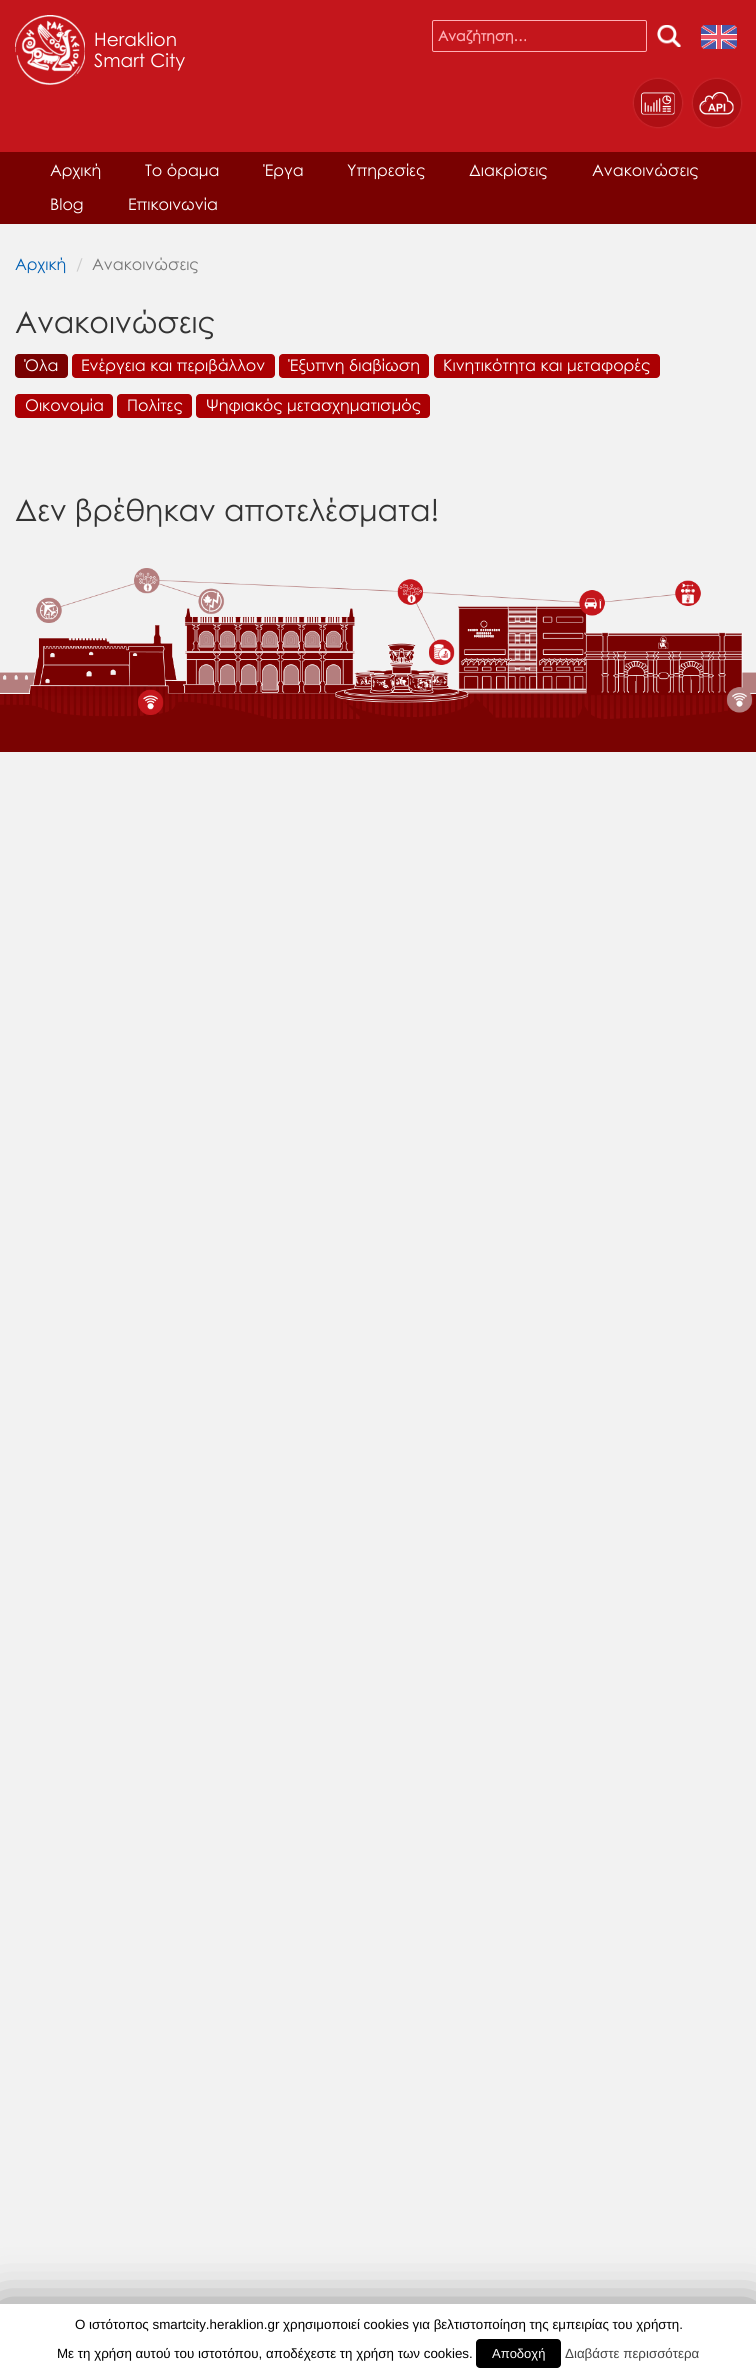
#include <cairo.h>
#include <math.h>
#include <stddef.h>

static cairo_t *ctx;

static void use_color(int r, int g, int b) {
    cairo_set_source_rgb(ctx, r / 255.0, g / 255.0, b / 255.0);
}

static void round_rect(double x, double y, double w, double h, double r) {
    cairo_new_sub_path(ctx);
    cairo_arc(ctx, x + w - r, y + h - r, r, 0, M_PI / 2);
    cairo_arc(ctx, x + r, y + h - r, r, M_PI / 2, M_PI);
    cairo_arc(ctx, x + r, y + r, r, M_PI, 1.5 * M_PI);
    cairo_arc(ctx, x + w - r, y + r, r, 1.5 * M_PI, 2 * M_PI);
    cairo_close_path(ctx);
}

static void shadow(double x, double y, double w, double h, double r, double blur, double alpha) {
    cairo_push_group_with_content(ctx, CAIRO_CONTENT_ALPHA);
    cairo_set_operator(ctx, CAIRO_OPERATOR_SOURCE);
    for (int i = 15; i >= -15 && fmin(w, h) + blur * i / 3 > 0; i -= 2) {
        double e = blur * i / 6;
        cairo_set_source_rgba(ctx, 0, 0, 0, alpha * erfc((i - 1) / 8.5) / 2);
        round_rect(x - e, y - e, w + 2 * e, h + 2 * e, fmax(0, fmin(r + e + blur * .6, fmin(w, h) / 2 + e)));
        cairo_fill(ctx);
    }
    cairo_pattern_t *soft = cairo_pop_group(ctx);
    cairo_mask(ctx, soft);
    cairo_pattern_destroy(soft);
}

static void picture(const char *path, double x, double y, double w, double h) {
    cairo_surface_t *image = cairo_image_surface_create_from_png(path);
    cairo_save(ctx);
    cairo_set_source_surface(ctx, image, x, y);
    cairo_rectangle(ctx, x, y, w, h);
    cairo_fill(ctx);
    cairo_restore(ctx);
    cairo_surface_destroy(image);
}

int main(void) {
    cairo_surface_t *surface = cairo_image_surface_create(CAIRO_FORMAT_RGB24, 756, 2378);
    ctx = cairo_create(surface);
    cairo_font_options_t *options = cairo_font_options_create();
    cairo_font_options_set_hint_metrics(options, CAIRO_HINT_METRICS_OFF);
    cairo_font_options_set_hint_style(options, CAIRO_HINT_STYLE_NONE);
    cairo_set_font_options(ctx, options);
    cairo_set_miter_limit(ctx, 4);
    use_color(242, 242, 242);
    cairo_paint(ctx);
    use_color(196, 22, 28);
    cairo_rectangle(ctx, 0, 0, 756, 152);
    cairo_fill(ctx);
    picture("img1.png", 15, 15, 70, 70);
    cairo_select_font_face(ctx, "Century Gothic", CAIRO_FONT_SLANT_NORMAL, CAIRO_FONT_WEIGHT_NORMAL);
    cairo_set_font_size(ctx, 18.5);
    use_color(255, 255, 255);
    cairo_move_to(ctx, 94, 46);
    cairo_show_text(ctx, "Heraklion");
    cairo_move_to(ctx, 94, 67);
    cairo_show_text(ctx, "Smart City");
    round_rect(432.5, 20.5, 214, 31, 1.5);
    use_color(255, 175, 181);
    cairo_set_line_width(ctx, 1);
    cairo_stroke(ctx);
    cairo_select_font_face(ctx, "Century Gothic", CAIRO_FONT_SLANT_NORMAL, CAIRO_FONT_WEIGHT_BOLD);
    cairo_set_font_size(ctx, 14);
    cairo_move_to(ctx, 438, 41);
    cairo_show_text(ctx, "Αναζήτηση…");
    picture("img2.png", 657, 25, 24, 22);
    picture("img3.png", 701, 25, 36, 24);
    cairo_save(ctx);
    cairo_set_fill_rule(ctx, CAIRO_FILL_RULE_EVEN_ODD);
    cairo_new_path(ctx);
    cairo_move_to(ctx, 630, 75);
    cairo_line_to(ctx, 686, 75);
    cairo_line_to(ctx, 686, 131);
    cairo_line_to(ctx, 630, 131);
    cairo_close_path(ctx);
    cairo_move_to(ctx, 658, 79);
    cairo_curve_to(ctx, 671.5, 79, 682, 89.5, 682, 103);
    cairo_curve_to(ctx, 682, 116.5, 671.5, 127, 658, 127);
    cairo_curve_to(ctx, 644.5, 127, 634, 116.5, 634, 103);
    cairo_curve_to(ctx, 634, 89.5, 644.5, 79, 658, 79);
    cairo_close_path(ctx);
    cairo_clip(ctx);
    use_color(255, 255, 255);
    shadow(634, 79, 48, 48, 24, 1, 0.2);
    cairo_restore(ctx);
    cairo_set_source_rgba(ctx, 0.475, 0.004, 0.004, 0.3);
    cairo_arc(ctx, 658, 103, 24, 0, 2 * M_PI);
    cairo_fill(ctx);
    picture("img4.png", 641, 92, 34, 23);
    cairo_save(ctx);
    cairo_set_fill_rule(ctx, CAIRO_FILL_RULE_EVEN_ODD);
    cairo_new_path(ctx);
    cairo_move_to(ctx, 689, 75);
    cairo_line_to(ctx, 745, 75);
    cairo_line_to(ctx, 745, 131);
    cairo_line_to(ctx, 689, 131);
    cairo_close_path(ctx);
    cairo_move_to(ctx, 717, 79);
    cairo_curve_to(ctx, 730.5, 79, 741, 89.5, 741, 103);
    cairo_curve_to(ctx, 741, 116.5, 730.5, 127, 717, 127);
    cairo_curve_to(ctx, 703.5, 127, 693, 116.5, 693, 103);
    cairo_curve_to(ctx, 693, 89.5, 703.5, 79, 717, 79);
    cairo_close_path(ctx);
    cairo_clip(ctx);
    use_color(255, 255, 255);
    shadow(693, 79, 48, 48, 24, 1, 0.2);
    cairo_restore(ctx);
    cairo_arc(ctx, 717, 103, 24, 0, 2 * M_PI);
    cairo_fill(ctx);
    picture("img5.png", 699, 92, 35, 23);
    use_color(121, 1, 1);
    cairo_rectangle(ctx, 0, 152, 756, 72);
    cairo_fill(ctx);
    cairo_select_font_face(ctx, "Century Gothic", CAIRO_FONT_SLANT_NORMAL, CAIRO_FONT_WEIGHT_NORMAL);
    cairo_set_font_size(ctx, 16);
    use_color(255, 255, 255);
    cairo_move_to(ctx, 50, 176);
    cairo_show_text(ctx, "Αρχική");
    cairo_move_to(ctx, 145, 176);
    cairo_show_text(ctx, "Το όραμα");
    cairo_move_to(ctx, 264, 176);
    cairo_show_text(ctx, "Έργα");
    cairo_move_to(ctx, 347, 176);
    cairo_show_text(ctx, "Υπηρεσίες");
    cairo_move_to(ctx, 469, 176);
    cairo_show_text(ctx, "Διακρίσεις");
    cairo_move_to(ctx, 592, 176);
    cairo_show_text(ctx, "Ανακοινώσεις");
    cairo_move_to(ctx, 50, 210);
    cairo_show_text(ctx, "Blog");
    cairo_move_to(ctx, 128, 210);
    cairo_show_text(ctx, "Επικοινωνία");
    use_color(0, 95, 179);
    cairo_move_to(ctx, 15, 270);
    cairo_show_text(ctx, "Αρχική");
    use_color(204, 204, 204);
    cairo_move_to(ctx, 76, 270);
    cairo_show_text(ctx, "/");
    use_color(119, 119, 119);
    cairo_move_to(ctx, 92, 270);
    cairo_show_text(ctx, "Ανακοινώσεις");
    cairo_set_font_size(ctx, 30);
    use_color(51, 51, 51);
    cairo_move_to(ctx, 15, 333);
    cairo_show_text(ctx, "Ανακοινώσεις");
    use_color(121, 1, 1);
    round_rect(15, 354, 53, 24, 4);
    cairo_fill(ctx);
    cairo_set_font_size(ctx, 16);
    use_color(255, 255, 255);
    cairo_move_to(ctx, 25, 371);
    cairo_show_text(ctx, "Όλα");
    use_color(171, 0, 3);
    round_rect(72, 354, 203, 24, 4);
    cairo_fill(ctx);
    use_color(255, 255, 255);
    cairo_move_to(ctx, 81, 371);
    cairo_show_text(ctx, "Ενέργεια και περιβάλλον");
    use_color(171, 0, 3);
    round_rect(279, 354, 150, 24, 4);
    cairo_fill(ctx);
    use_color(255, 255, 255);
    cairo_move_to(ctx, 289, 371);
    cairo_show_text(ctx, "Έξυπνη διαβίωση");
    use_color(171, 0, 3);
    round_rect(434, 354, 226, 24, 4);
    cairo_fill(ctx);
    use_color(255, 255, 255);
    cairo_move_to(ctx, 443, 371);
    cairo_show_text(ctx, "Κινητικότητα και μεταφορές");
    use_color(171, 0, 3);
    round_rect(15, 394, 98, 24, 4);
    cairo_fill(ctx);
    use_color(255, 255, 255);
    cairo_move_to(ctx, 25, 411);
    cairo_show_text(ctx, "Οικονομία");
    use_color(171, 0, 3);
    round_rect(117, 394, 75, 24, 4);
    cairo_fill(ctx);
    use_color(255, 255, 255);
    cairo_move_to(ctx, 127, 411);
    cairo_show_text(ctx, "Πολίτες");
    use_color(171, 0, 3);
    round_rect(196, 394, 234, 24, 4);
    cairo_fill(ctx);
    use_color(255, 255, 255);
    cairo_move_to(ctx, 206, 411);
    cairo_show_text(ctx, "Ψηφιακός μετασχηματισμός");
    cairo_set_font_size(ctx, 30);
    use_color(51, 51, 51);
    cairo_move_to(ctx, 15, 521);
    cairo_show_text(ctx, "Δεν βρέθηκαν αποτελέσματα!");
    picture("img6.png", 0, 568, 756, 154);
    use_color(122, 3, 2);
    cairo_rectangle(ctx, 0, 722, 756, 30);
    cairo_fill(ctx);
    use_color(0, 0, 0);
    shadow(0, 2309, 756, 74, 0, 25, 0.5);
    use_color(255, 255, 255);
    cairo_rectangle(ctx, 0, 2304, 756, 74);
    cairo_fill(ctx);
    cairo_select_font_face(ctx, "Arimo", CAIRO_FONT_SLANT_NORMAL, CAIRO_FONT_WEIGHT_NORMAL);
    cairo_set_font_size(ctx, 13.35);
    use_color(0, 0, 0);
    cairo_move_to(ctx, 75, 2329);
    cairo_show_text(ctx, "Ο ιστότοπος smartcity.heraklion.gr χρησιμοποιεί cookies για βελτιστοποίηση της εμπειρίας του χρήστη.");
    cairo_move_to(ctx, 57, 2358);
    cairo_show_text(ctx, "Με τη χρήση αυτού του ιστοτόπου, αποδέχεστε τη χρήση των cookies.");
    round_rect(476, 2339, 85, 29, 4);
    cairo_fill(ctx);
    cairo_set_font_size(ctx, 13);
    use_color(255, 255, 255);
    cairo_move_to(ctx, 492, 2358);
    cairo_show_text(ctx, "Αποδοχή");
    cairo_set_font_size(ctx, 13.35);
    use_color(68, 68, 68);
    cairo_move_to(ctx, 565, 2358);
    cairo_show_text(ctx, "Διαβάστε περισσότερα");
    cairo_surface_write_to_png(surface, "result.png");
    cairo_font_options_destroy(options);
    cairo_destroy(ctx);
    cairo_surface_destroy(surface);
    return 0;
}
